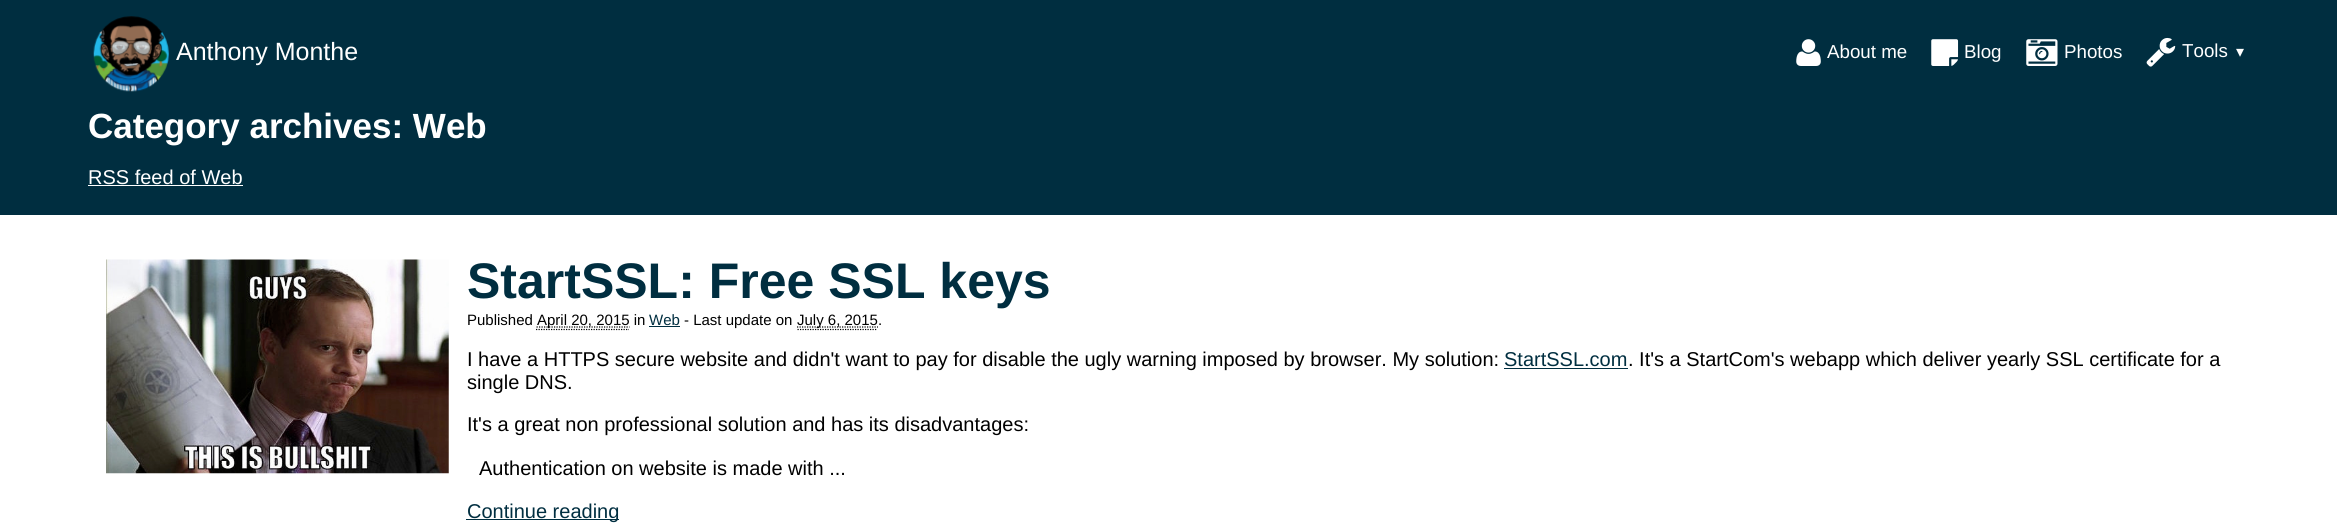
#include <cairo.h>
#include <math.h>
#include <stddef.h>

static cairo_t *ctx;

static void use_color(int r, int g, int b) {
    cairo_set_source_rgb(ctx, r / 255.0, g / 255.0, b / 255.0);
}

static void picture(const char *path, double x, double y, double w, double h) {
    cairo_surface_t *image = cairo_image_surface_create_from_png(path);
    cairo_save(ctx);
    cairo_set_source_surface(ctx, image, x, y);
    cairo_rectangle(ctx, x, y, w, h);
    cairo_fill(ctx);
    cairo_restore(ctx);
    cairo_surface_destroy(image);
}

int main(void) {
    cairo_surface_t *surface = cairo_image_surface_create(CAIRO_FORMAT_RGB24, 2337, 528);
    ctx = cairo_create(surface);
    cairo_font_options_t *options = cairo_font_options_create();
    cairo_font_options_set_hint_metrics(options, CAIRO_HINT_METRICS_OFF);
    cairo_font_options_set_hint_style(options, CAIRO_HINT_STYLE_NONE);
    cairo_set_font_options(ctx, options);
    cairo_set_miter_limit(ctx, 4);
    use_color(255, 255, 255);
    cairo_paint(ctx);
    use_color(0, 46, 64);
    cairo_rectangle(ctx, 0, 0, 2337, 215);
    cairo_fill(ctx);
    picture("img1.png", 93, 16, 76, 76);
    cairo_select_font_face(ctx, "Liberation Sans", CAIRO_FONT_SLANT_NORMAL, CAIRO_FONT_WEIGHT_NORMAL);
    cairo_set_font_size(ctx, 25);
    use_color(255, 255, 255);
    cairo_move_to(ctx, 176, 60);
    cairo_show_text(ctx, "Anthony Monthe");
    picture("img2.png", 1796, 39, 25, 27);
    cairo_set_font_size(ctx, 18.75);
    cairo_move_to(ctx, 1827, 58);
    cairo_show_text(ctx, "About me");
    picture("img3.png", 1931, 39, 28, 27);
    cairo_move_to(ctx, 1964, 58);
    cairo_show_text(ctx, "Blog");
    picture("img4.png", 2026, 39, 32, 27);
    cairo_move_to(ctx, 2064, 58);
    cairo_show_text(ctx, "Photos");
    picture("img5.png", 2146, 37, 30, 30);
    cairo_move_to(ctx, 2182, 57);
    cairo_show_text(ctx, "Tools");
    cairo_select_font_face(ctx, "DejaVu Sans", CAIRO_FONT_SLANT_NORMAL, CAIRO_FONT_WEIGHT_NORMAL);
    cairo_set_font_size(ctx, 16);
    cairo_move_to(ctx, 2236, 57);
    cairo_show_text(ctx, "▾");
    cairo_select_font_face(ctx, "Liberation Sans", CAIRO_FONT_SLANT_NORMAL, CAIRO_FONT_WEIGHT_BOLD);
    cairo_set_font_size(ctx, 35);
    cairo_move_to(ctx, 88, 138);
    cairo_show_text(ctx, "Category archives: Web");
    cairo_select_font_face(ctx, "Liberation Sans", CAIRO_FONT_SLANT_NORMAL, CAIRO_FONT_WEIGHT_NORMAL);
    cairo_set_font_size(ctx, 20);
    cairo_move_to(ctx, 88, 184);
    cairo_show_text(ctx, "RSS feed of Web");
    cairo_rectangle(ctx, 88, 185, 155, 1);
    cairo_fill(ctx);
    picture("img6.png", 106, 259, 343, 215);
    cairo_select_font_face(ctx, "Liberation Sans", CAIRO_FONT_SLANT_NORMAL, CAIRO_FONT_WEIGHT_BOLD);
    cairo_set_font_size(ctx, 50);
    use_color(0, 46, 64);
    cairo_move_to(ctx, 467, 298);
    cairo_show_text(ctx, "StartSSL: Free SSL keys");
    cairo_select_font_face(ctx, "Liberation Sans", CAIRO_FONT_SLANT_NORMAL, CAIRO_FONT_WEIGHT_NORMAL);
    cairo_set_font_size(ctx, 15);
    use_color(0, 0, 0);
    cairo_move_to(ctx, 467, 325);
    cairo_show_text(ctx, "Published");
    cairo_new_path(ctx);
    cairo_move_to(ctx, 536, 329.5);
    cairo_line_to(ctx, 629, 329.5);
    cairo_set_line_width(ctx, 1.2);
    cairo_set_dash(ctx, (double[]){1.25, 1.25}, 2, 0);
    cairo_stroke(ctx);
    cairo_new_path(ctx);
    cairo_move_to(ctx, 536.5, 327);
    cairo_line_to(ctx, 629.5, 327);
    cairo_stroke(ctx);
    cairo_move_to(ctx, 537, 325);
    cairo_show_text(ctx, "April 20, 2015 in");
    use_color(0, 46, 64);
    cairo_move_to(ctx, 649, 325);
    cairo_show_text(ctx, "Web");
    cairo_rectangle(ctx, 649, 326, 31, 1);
    cairo_fill(ctx);
    use_color(0, 0, 0);
    cairo_move_to(ctx, 684, 325);
    cairo_show_text(ctx, "- Last update on");
    cairo_new_path(ctx);
    cairo_move_to(ctx, 797.5, 329.5);
    cairo_line_to(ctx, 877.5, 329.5);
    cairo_stroke(ctx);
    cairo_new_path(ctx);
    cairo_move_to(ctx, 797, 327);
    cairo_line_to(ctx, 878, 327);
    cairo_stroke(ctx);
    cairo_move_to(ctx, 797, 325);
    cairo_show_text(ctx, "July 6, 2015.");
    cairo_set_font_size(ctx, 20);
    cairo_move_to(ctx, 467, 366);
    cairo_show_text(ctx, "I have a HTTPS secure website and didn't want to pay for disable the ugly warning imposed by browser. My solution:");
    use_color(0, 46, 64);
    cairo_move_to(ctx, 1504, 366);
    cairo_show_text(ctx, "StartSSL.com");
    cairo_rectangle(ctx, 1504, 368, 124, 1);
    cairo_fill(ctx);
    use_color(0, 0, 0);
    cairo_move_to(ctx, 1628, 366);
    cairo_show_text(ctx, ". It's a StartCom's webapp which deliver yearly SSL certificate for a");
    cairo_move_to(ctx, 467, 389);
    cairo_show_text(ctx, "single DNS.");
    cairo_move_to(ctx, 467, 431);
    cairo_show_text(ctx, "It's a great non professional solution and has its disadvantages:");
    cairo_move_to(ctx, 479, 475);
    cairo_show_text(ctx, "Authentication on website is made with ...");
    use_color(0, 46, 64);
    cairo_rectangle(ctx, 466, 519, 153, 1);
    cairo_fill(ctx);
    cairo_move_to(ctx, 467, 518);
    cairo_show_text(ctx, "Continue reading");
    cairo_surface_write_to_png(surface, "result.png");
    cairo_font_options_destroy(options);
    cairo_destroy(ctx);
    cairo_surface_destroy(surface);
    return 0;
}
